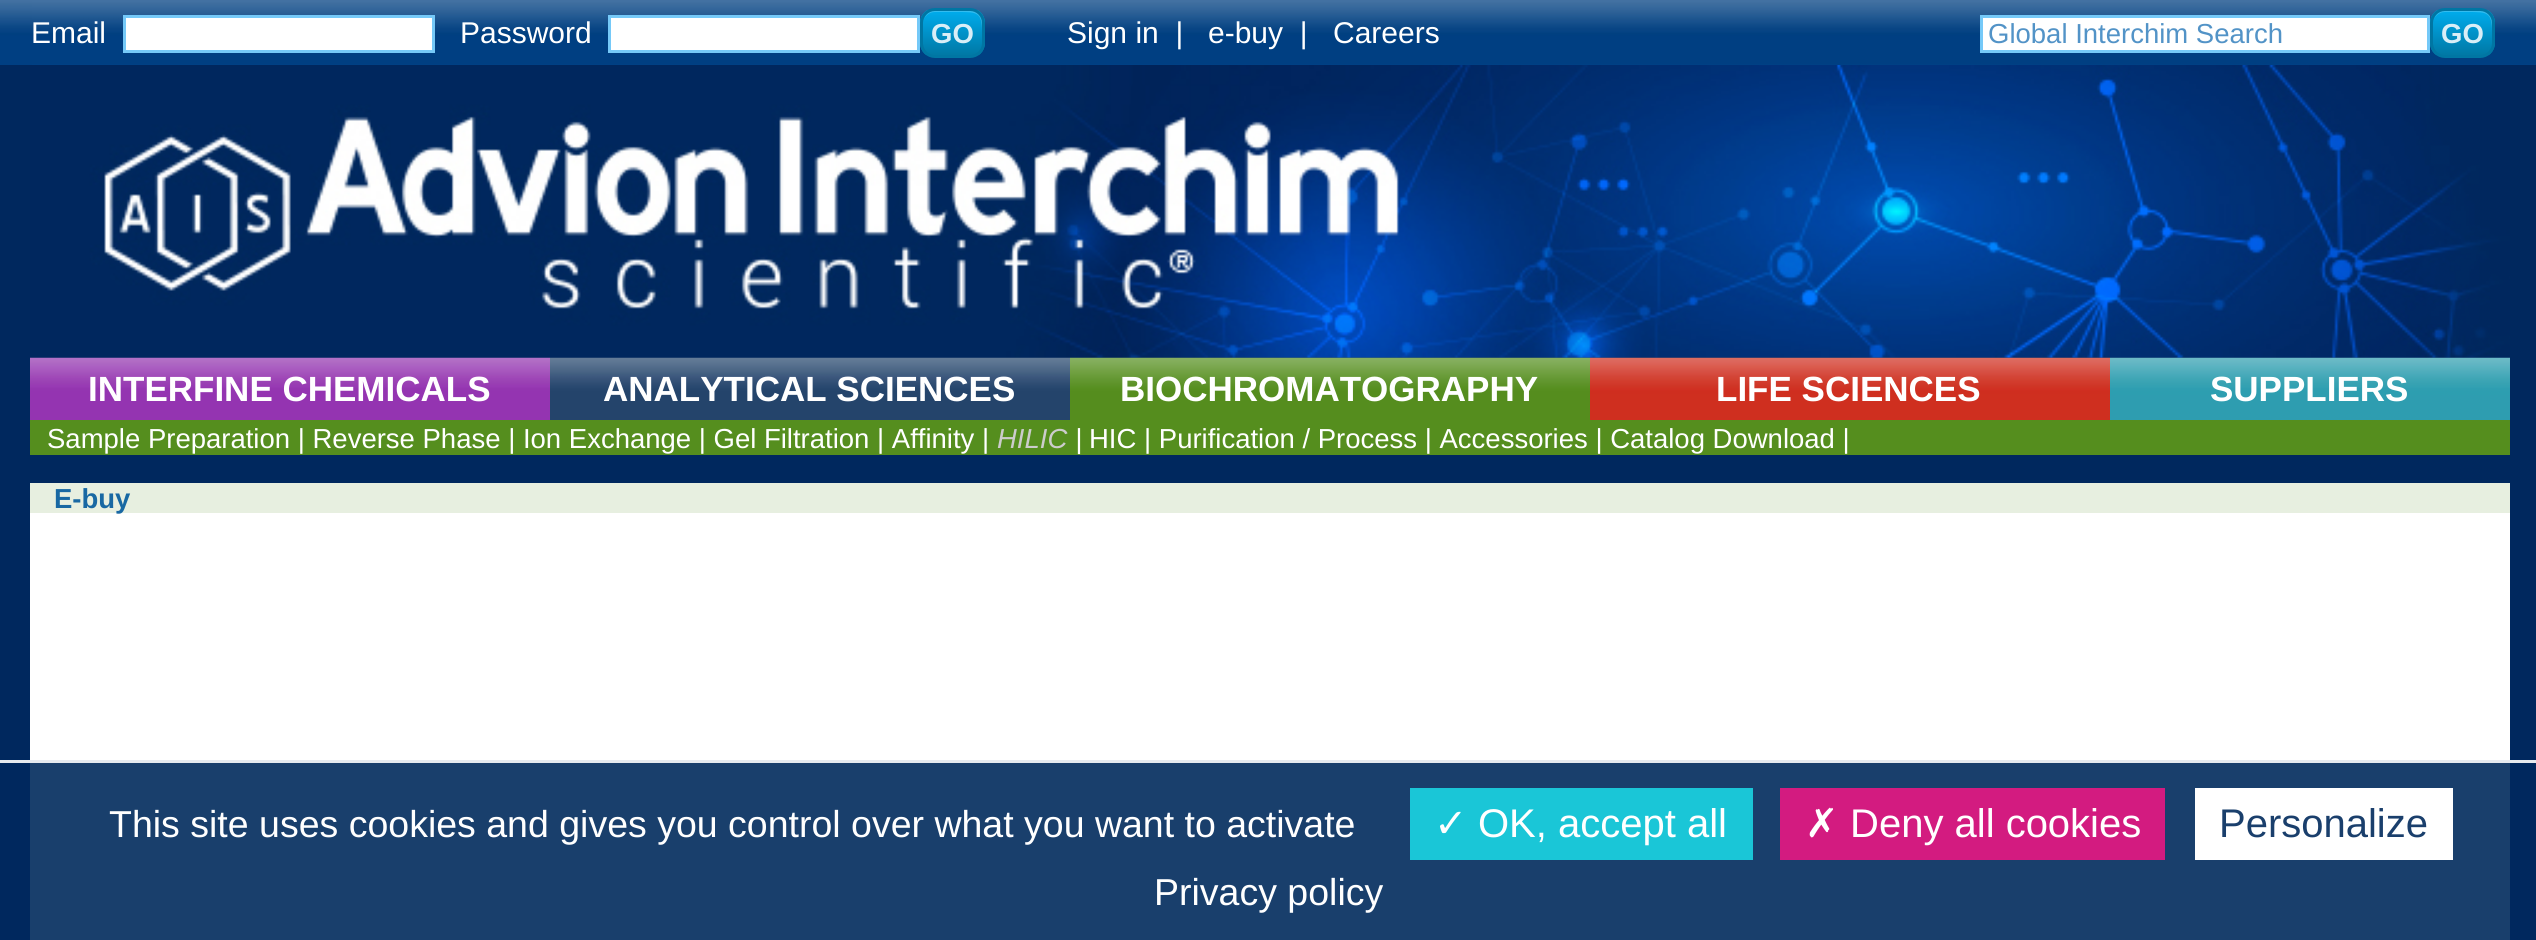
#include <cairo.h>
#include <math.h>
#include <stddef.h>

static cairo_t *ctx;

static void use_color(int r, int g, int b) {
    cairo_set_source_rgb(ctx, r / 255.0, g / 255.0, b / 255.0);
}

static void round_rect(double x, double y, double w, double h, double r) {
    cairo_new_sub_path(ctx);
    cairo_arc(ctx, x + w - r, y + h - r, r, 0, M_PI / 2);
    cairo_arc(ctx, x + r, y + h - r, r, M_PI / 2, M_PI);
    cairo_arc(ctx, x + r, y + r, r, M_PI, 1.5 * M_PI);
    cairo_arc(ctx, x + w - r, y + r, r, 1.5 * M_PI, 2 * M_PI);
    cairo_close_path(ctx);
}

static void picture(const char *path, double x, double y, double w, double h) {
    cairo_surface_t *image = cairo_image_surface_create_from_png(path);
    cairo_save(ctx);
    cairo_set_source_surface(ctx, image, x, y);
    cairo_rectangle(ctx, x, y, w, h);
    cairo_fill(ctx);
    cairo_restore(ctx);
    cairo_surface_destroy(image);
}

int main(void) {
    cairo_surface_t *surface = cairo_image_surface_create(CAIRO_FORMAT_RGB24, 2536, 940);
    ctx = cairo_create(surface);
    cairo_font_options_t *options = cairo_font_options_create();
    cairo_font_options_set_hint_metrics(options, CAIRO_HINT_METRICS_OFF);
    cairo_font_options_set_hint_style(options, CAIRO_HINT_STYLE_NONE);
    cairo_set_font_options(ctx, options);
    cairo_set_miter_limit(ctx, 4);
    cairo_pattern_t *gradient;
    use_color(0, 40, 94);
    cairo_paint(ctx);
    use_color(230, 234, 239);
    cairo_rectangle(ctx, 0, 760, 2536, 3);
    cairo_fill(ctx);
    picture("img1.png", 0, 0, 32, 65);
    picture("img2.png", 32, 0, 2504, 65);
    cairo_select_font_face(ctx, "Liberation Sans", CAIRO_FONT_SLANT_NORMAL, CAIRO_FONT_WEIGHT_NORMAL);
    cairo_set_font_size(ctx, 30);
    use_color(255, 255, 255);
    cairo_move_to(ctx, 31, 43);
    cairo_show_text(ctx, "Email");
    cairo_rectangle(ctx, 124.5, 16.5, 309, 35);
    cairo_fill_preserve(ctx);
    use_color(117, 201, 248);
    cairo_set_line_width(ctx, 3);
    cairo_stroke(ctx);
    use_color(255, 255, 255);
    cairo_move_to(ctx, 460, 43);
    cairo_show_text(ctx, "Password");
    cairo_rectangle(ctx, 609.5, 16.5, 309, 35);
    cairo_fill_preserve(ctx);
    use_color(117, 201, 248);
    cairo_stroke(ctx);
    cairo_save(ctx);
    round_rect(920, 8, 65, 50, 15);
    cairo_clip(ctx);
    gradient = cairo_pattern_create_linear(923, 10, 923, 55);
    cairo_pattern_add_color_stop_rgba(gradient, 0, 0, 0.678, 0.933, 1);
    cairo_pattern_add_color_stop_rgba(gradient, 1, 0, 0.471, 0.647, 1);
    cairo_set_source(ctx, gradient);
    cairo_pattern_destroy(gradient);
    cairo_rectangle(ctx, 920, 10, 65, 45);
    cairo_fill(ctx);
    cairo_restore(ctx);
    cairo_set_source_rgba(ctx, 1, 1, 1, 0.2);
    cairo_new_path(ctx);
    cairo_move_to(ctx, 935, 12);
    cairo_line_to(ctx, 958, 12);
    cairo_curve_to(ctx, 977, 12, 982, 12, 982, 32);
    cairo_line_to(ctx, 982, 47);
    cairo_curve_to(ctx, 983, 46, 983, 44, 983, 42);
    cairo_line_to(ctx, 983, 23);
    cairo_curve_to(ctx, 983, 16, 977, 10, 970, 10);
    cairo_line_to(ctx, 936, 10);
    cairo_curve_to(ctx, 930, 10, 926, 14, 924, 19);
    cairo_curve_to(ctx, 926, 15, 930, 12, 935, 12);
    cairo_close_path(ctx);
    cairo_fill(ctx);
    round_rect(921.5, 9.5, 62, 47, 13.5);
    use_color(0, 118, 163);
    cairo_stroke(ctx);
    cairo_select_font_face(ctx, "Liberation Sans", CAIRO_FONT_SLANT_NORMAL, CAIRO_FONT_WEIGHT_BOLD);
    cairo_set_font_size(ctx, 27.5);
    use_color(217, 238, 247);
    cairo_move_to(ctx, 931, 43);
    cairo_show_text(ctx, "GO");
    cairo_select_font_face(ctx, "Liberation Sans", CAIRO_FONT_SLANT_NORMAL, CAIRO_FONT_WEIGHT_NORMAL);
    cairo_set_font_size(ctx, 30);
    use_color(255, 255, 255);
    cairo_move_to(ctx, 1067, 43);
    cairo_show_text(ctx, "Sign in  |");
    cairo_move_to(ctx, 1208, 43);
    cairo_show_text(ctx, "e-buy  |");
    cairo_move_to(ctx, 1333, 43);
    cairo_show_text(ctx, "Careers");
    cairo_rectangle(ctx, 1981.5, 16.5, 447, 35);
    cairo_fill_preserve(ctx);
    use_color(117, 201, 248);
    cairo_stroke(ctx);
    cairo_set_font_size(ctx, 27.5);
    use_color(82, 147, 199);
    cairo_move_to(ctx, 1988, 43);
    cairo_show_text(ctx, "Global Interchim Search");
    cairo_save(ctx);
    round_rect(2430, 8, 65, 50, 15);
    cairo_clip(ctx);
    gradient = cairo_pattern_create_linear(2433, 10, 2433, 55);
    cairo_pattern_add_color_stop_rgba(gradient, 0, 0, 0.678, 0.933, 1);
    cairo_pattern_add_color_stop_rgba(gradient, 1, 0, 0.471, 0.647, 1);
    cairo_set_source(ctx, gradient);
    cairo_pattern_destroy(gradient);
    cairo_rectangle(ctx, 2430, 10, 65, 45);
    cairo_fill(ctx);
    cairo_restore(ctx);
    cairo_set_source_rgba(ctx, 1, 1, 1, 0.2);
    cairo_new_path(ctx);
    cairo_move_to(ctx, 2445, 12);
    cairo_line_to(ctx, 2468, 12);
    cairo_curve_to(ctx, 2487, 12, 2492, 12, 2492, 32);
    cairo_line_to(ctx, 2492, 47);
    cairo_curve_to(ctx, 2493, 46, 2493, 44, 2493, 42);
    cairo_line_to(ctx, 2493, 23);
    cairo_curve_to(ctx, 2493, 16, 2487, 10, 2480, 10);
    cairo_line_to(ctx, 2446, 10);
    cairo_curve_to(ctx, 2440, 10, 2436, 14, 2434, 19);
    cairo_curve_to(ctx, 2436, 15, 2440, 12, 2445, 12);
    cairo_close_path(ctx);
    cairo_fill(ctx);
    round_rect(2431.5, 9.5, 62, 47, 13.5);
    use_color(0, 118, 163);
    cairo_stroke(ctx);
    cairo_select_font_face(ctx, "Liberation Sans", CAIRO_FONT_SLANT_NORMAL, CAIRO_FONT_WEIGHT_BOLD);
    use_color(217, 238, 247);
    cairo_move_to(ctx, 2441, 43);
    cairo_show_text(ctx, "GO");
    picture("img4.png", 1070, 357, 520, 63);
    picture("img5.png", 30, 357, 520, 63);
    picture("img6.png", 550, 357, 520, 63);
    picture("img7.png", 1590, 357, 520, 63);
    picture("img8.png", 2110, 357, 400, 63);
    picture("img3.png", 30, 65, 2480, 293);
    cairo_set_font_size(ctx, 35);
    use_color(255, 255, 255);
    cairo_move_to(ctx, 1120, 401);
    cairo_show_text(ctx, "BIOCHROMATOGRAPHY");
    use_color(85, 142, 30);
    cairo_rectangle(ctx, 30, 420, 2480, 35);
    cairo_fill(ctx);
    cairo_select_font_face(ctx, "Liberation Sans", CAIRO_FONT_SLANT_NORMAL, CAIRO_FONT_WEIGHT_NORMAL);
    cairo_set_font_size(ctx, 27.5);
    use_color(255, 255, 255);
    cairo_move_to(ctx, 47, 448);
    cairo_show_text(ctx, "Sample Preparation | Reverse Phase | Ion Exchange | Gel Filtration | Affinity |");
    cairo_select_font_face(ctx, "Liberation Sans", CAIRO_FONT_SLANT_ITALIC, CAIRO_FONT_WEIGHT_NORMAL);
    use_color(204, 204, 204);
    cairo_move_to(ctx, 997, 448);
    cairo_show_text(ctx, "HILIC");
    use_color(255, 255, 255);
    cairo_move_to(ctx, 1075, 448);
    cairo_show_text(ctx, "|");
    cairo_select_font_face(ctx, "Liberation Sans", CAIRO_FONT_SLANT_NORMAL, CAIRO_FONT_WEIGHT_NORMAL);
    cairo_move_to(ctx, 1089, 448);
    cairo_show_text(ctx, "HIC | Purification / Process | Accessories | Catalog Download |");
    cairo_select_font_face(ctx, "Liberation Sans", CAIRO_FONT_SLANT_NORMAL, CAIRO_FONT_WEIGHT_BOLD);
    cairo_set_font_size(ctx, 35);
    cairo_move_to(ctx, 88, 401);
    cairo_show_text(ctx, "INTERFINE CHEMICALS");
    cairo_move_to(ctx, 603, 401);
    cairo_show_text(ctx, "ANALYTICAL SCIENCES");
    cairo_move_to(ctx, 1716, 401);
    cairo_show_text(ctx, "LIFE SCIENCES");
    cairo_move_to(ctx, 2210, 401);
    cairo_show_text(ctx, "SUPPLIERS");
    cairo_rectangle(ctx, 30, 513, 2480, 247);
    cairo_fill(ctx);
    use_color(25, 63, 108);
    cairo_rectangle(ctx, 30, 763, 2480, 177);
    cairo_fill(ctx);
    use_color(231, 239, 224);
    cairo_rectangle(ctx, 30, 483, 2480, 30);
    cairo_fill(ctx);
    cairo_set_font_size(ctx, 27.5);
    use_color(24, 104, 163);
    cairo_move_to(ctx, 54, 508);
    cairo_show_text(ctx, "E-buy");
    cairo_select_font_face(ctx, "Liberation Sans", CAIRO_FONT_SLANT_NORMAL, CAIRO_FONT_WEIGHT_NORMAL);
    cairo_set_font_size(ctx, 37.5);
    use_color(255, 255, 255);
    cairo_move_to(ctx, 109, 837);
    cairo_show_text(ctx, "This site uses cookies and gives you control over what you want to activate");
    use_color(26, 198, 215);
    cairo_rectangle(ctx, 1410, 788, 343, 72);
    cairo_fill(ctx);
    cairo_select_font_face(ctx, "DejaVu Sans", CAIRO_FONT_SLANT_NORMAL, CAIRO_FONT_WEIGHT_NORMAL);
    cairo_set_font_size(ctx, 40);
    use_color(255, 255, 255);
    cairo_move_to(ctx, 1434, 837);
    cairo_show_text(ctx, "✓");
    cairo_select_font_face(ctx, "Liberation Sans", CAIRO_FONT_SLANT_NORMAL, CAIRO_FONT_WEIGHT_NORMAL);
    cairo_move_to(ctx, 1478, 837);
    cairo_show_text(ctx, "OK, accept all");
    use_color(211, 27, 128);
    cairo_rectangle(ctx, 1780, 788, 385, 72);
    cairo_fill(ctx);
    cairo_select_font_face(ctx, "DejaVu Sans", CAIRO_FONT_SLANT_NORMAL, CAIRO_FONT_WEIGHT_NORMAL);
    use_color(255, 255, 255);
    cairo_move_to(ctx, 1805, 837);
    cairo_show_text(ctx, "✗");
    cairo_select_font_face(ctx, "Liberation Sans", CAIRO_FONT_SLANT_NORMAL, CAIRO_FONT_WEIGHT_NORMAL);
    cairo_move_to(ctx, 1850, 837);
    cairo_show_text(ctx, "Deny all cookies");
    cairo_rectangle(ctx, 2195, 788, 258, 72);
    cairo_fill(ctx);
    use_color(26, 63, 108);
    cairo_move_to(ctx, 2219, 837);
    cairo_show_text(ctx, "Personalize");
    cairo_set_font_size(ctx, 37.5);
    use_color(255, 255, 255);
    cairo_move_to(ctx, 1154, 905);
    cairo_show_text(ctx, "Privacy policy");
    cairo_surface_write_to_png(surface, "result.png");
    cairo_font_options_destroy(options);
    cairo_destroy(ctx);
    cairo_surface_destroy(surface);
    return 0;
}
